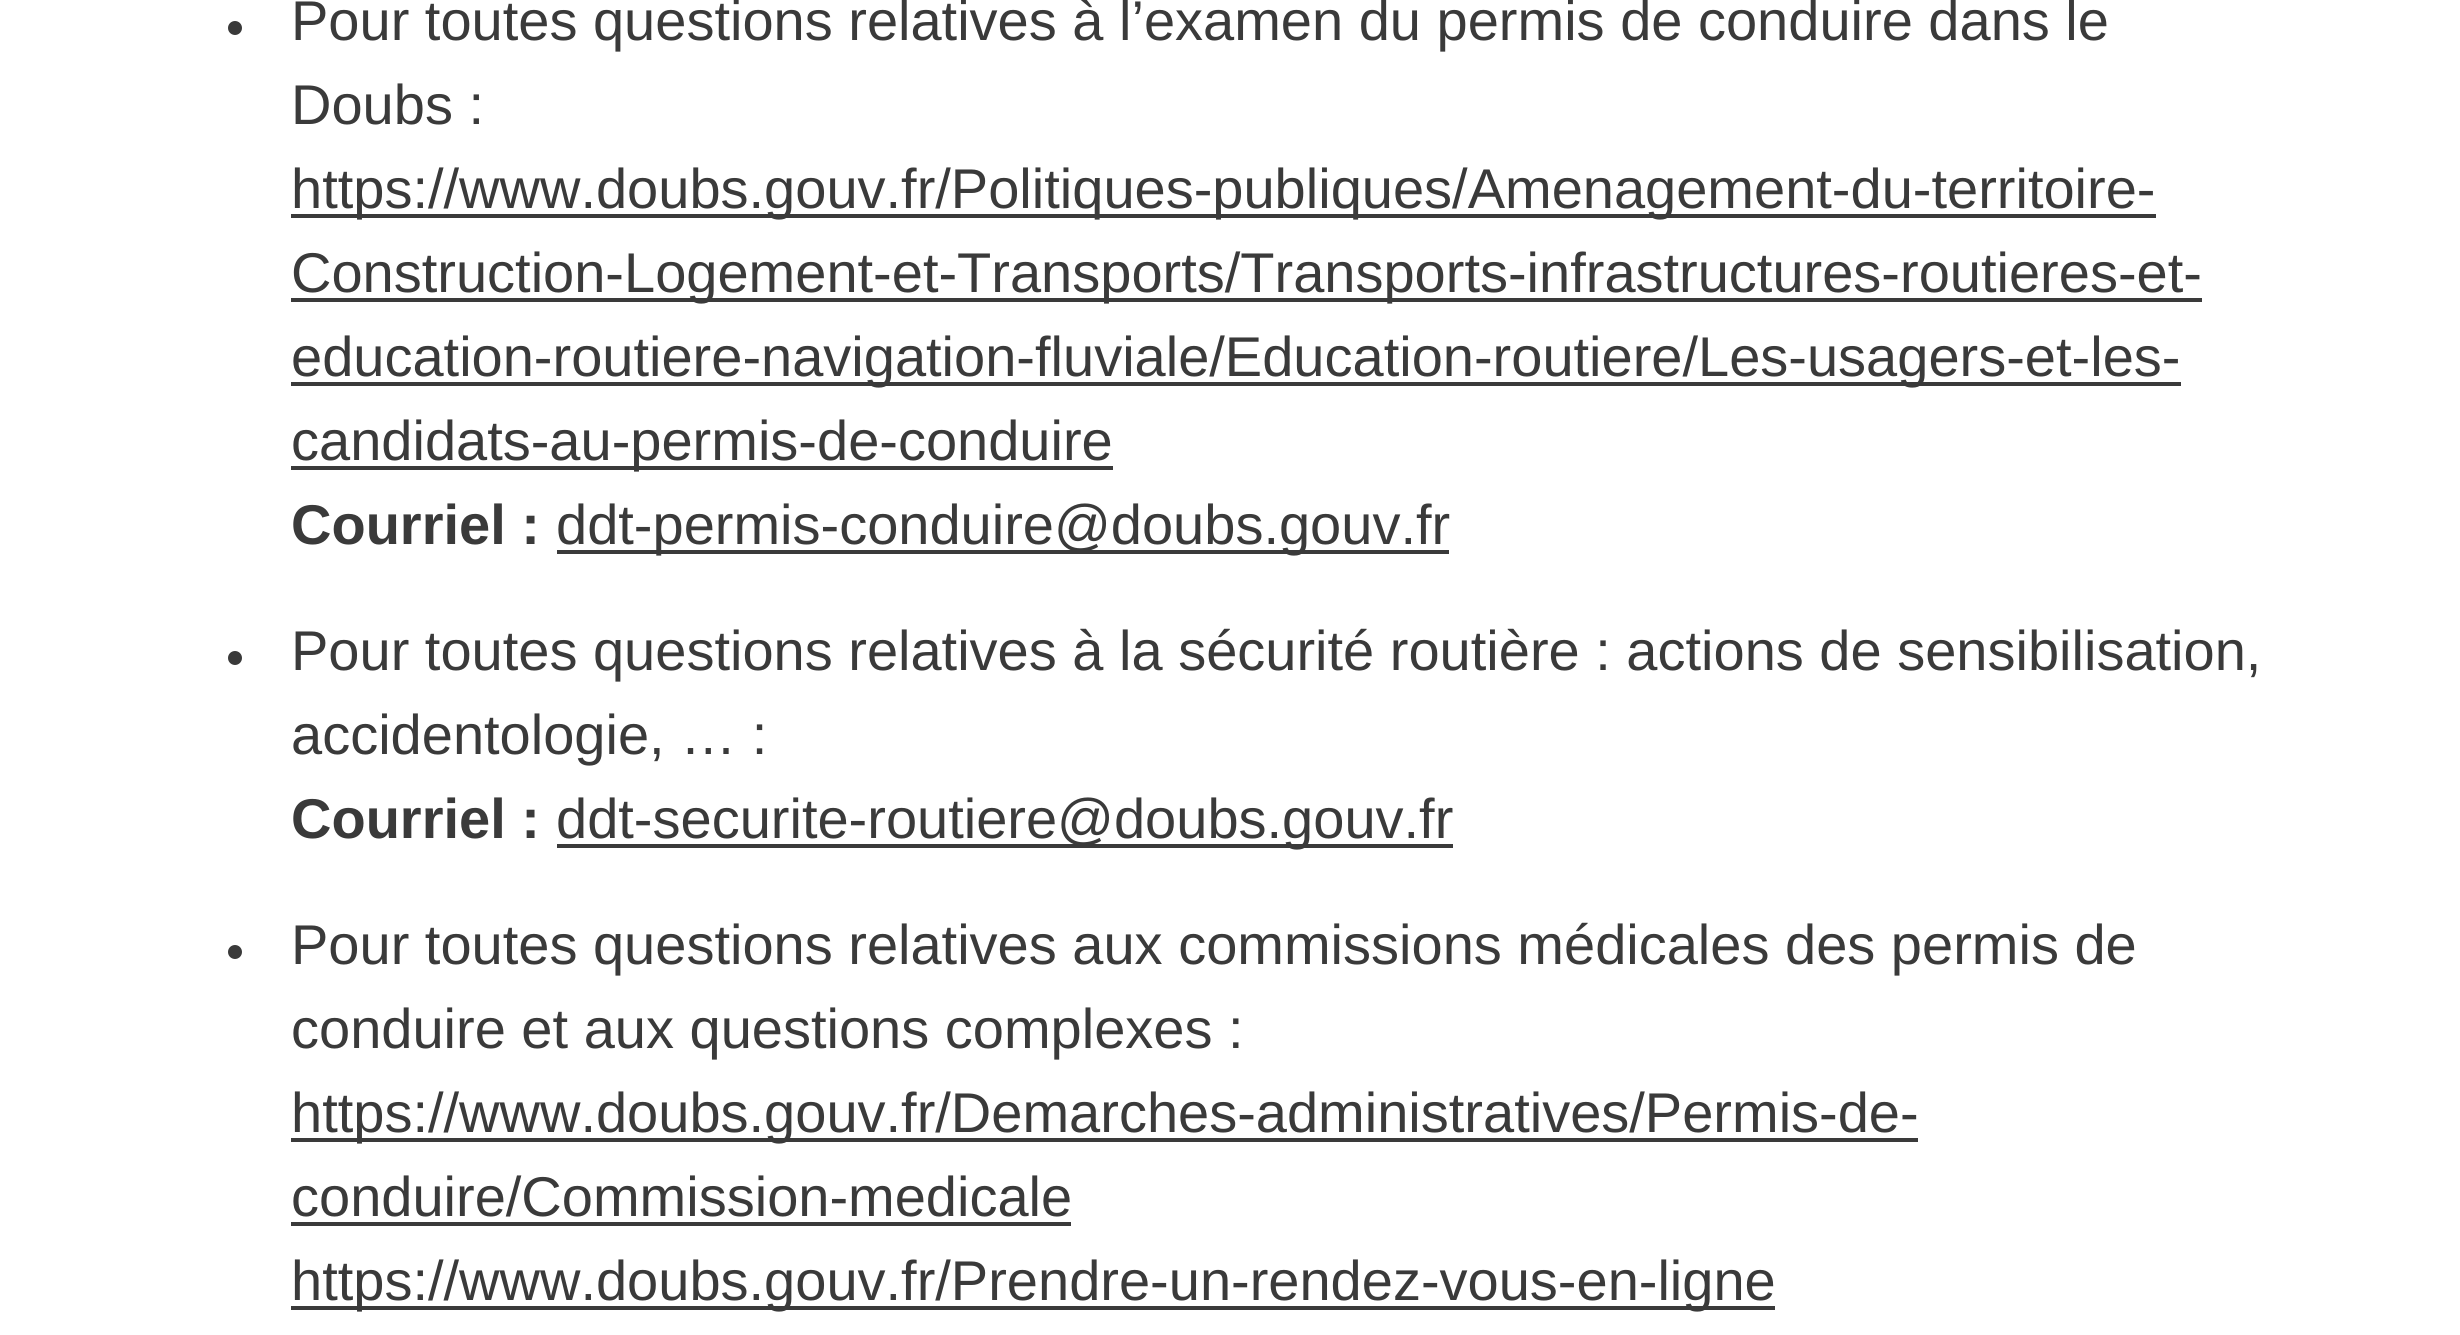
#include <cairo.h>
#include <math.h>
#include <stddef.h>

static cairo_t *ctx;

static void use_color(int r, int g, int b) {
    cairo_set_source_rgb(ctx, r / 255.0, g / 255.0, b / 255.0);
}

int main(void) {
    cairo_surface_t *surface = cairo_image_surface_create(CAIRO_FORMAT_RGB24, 2460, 1335);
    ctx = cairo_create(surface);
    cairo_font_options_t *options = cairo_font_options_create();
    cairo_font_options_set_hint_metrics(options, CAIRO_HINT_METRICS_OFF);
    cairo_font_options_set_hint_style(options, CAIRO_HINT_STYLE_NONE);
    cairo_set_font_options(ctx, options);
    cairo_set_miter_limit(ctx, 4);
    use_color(255, 255, 255);
    cairo_paint(ctx);
    use_color(58, 58, 58);
    cairo_arc(ctx, 235, 28, 7, 0, 2 * M_PI);
    cairo_fill(ctx);
    cairo_select_font_face(ctx, "Liberation Sans", CAIRO_FONT_SLANT_NORMAL, CAIRO_FONT_WEIGHT_NORMAL);
    cairo_set_font_size(ctx, 56);
    cairo_move_to(ctx, 291, 40);
    cairo_show_text(ctx, "Pour toutes questions relatives à l’examen du permis de conduire dans le");
    cairo_move_to(ctx, 291, 124);
    cairo_show_text(ctx, "Doubs :");
    cairo_rectangle(ctx, 291, 214, 1865, 4);
    cairo_fill(ctx);
    cairo_move_to(ctx, 291, 208);
    cairo_show_text(ctx, "https://www.doubs.gouv.fr/Politiques-publiques/Amenagement-du-territoire-");
    cairo_rectangle(ctx, 291, 298, 1911, 4);
    cairo_fill(ctx);
    cairo_move_to(ctx, 291, 292);
    cairo_show_text(ctx, "Construction-Logement-et-Transports/Transports-infrastructures-routieres-et-");
    cairo_rectangle(ctx, 291, 382, 1890, 4);
    cairo_fill(ctx);
    cairo_move_to(ctx, 291, 376);
    cairo_show_text(ctx, "education-routiere-navigation-fluviale/Education-routiere/Les-usagers-et-les-");
    cairo_rectangle(ctx, 291, 466, 822, 4);
    cairo_fill(ctx);
    cairo_move_to(ctx, 291, 460);
    cairo_show_text(ctx, "candidats-au-permis-de-conduire");
    cairo_select_font_face(ctx, "Liberation Sans", CAIRO_FONT_SLANT_NORMAL, CAIRO_FONT_WEIGHT_BOLD);
    cairo_move_to(ctx, 291, 544);
    cairo_show_text(ctx, "Courriel :");
    cairo_rectangle(ctx, 557, 550, 892, 4);
    cairo_fill(ctx);
    cairo_select_font_face(ctx, "Liberation Sans", CAIRO_FONT_SLANT_NORMAL, CAIRO_FONT_WEIGHT_NORMAL);
    cairo_move_to(ctx, 556, 544);
    cairo_show_text(ctx, "ddt-permis-conduire@doubs.gouv.fr");
    cairo_new_path(ctx);
    cairo_arc(ctx, 235, 658, 7, 0, 2 * M_PI);
    cairo_fill(ctx);
    cairo_move_to(ctx, 291, 670);
    cairo_show_text(ctx, "Pour toutes questions relatives à la sécurité routière : actions de sensibilisation,");
    cairo_move_to(ctx, 291, 754);
    cairo_show_text(ctx, "accidentologie, … :");
    cairo_select_font_face(ctx, "Liberation Sans", CAIRO_FONT_SLANT_NORMAL, CAIRO_FONT_WEIGHT_BOLD);
    cairo_move_to(ctx, 291, 838);
    cairo_show_text(ctx, "Courriel :");
    cairo_rectangle(ctx, 557, 844, 896, 4);
    cairo_fill(ctx);
    cairo_select_font_face(ctx, "Liberation Sans", CAIRO_FONT_SLANT_NORMAL, CAIRO_FONT_WEIGHT_NORMAL);
    cairo_move_to(ctx, 556, 838);
    cairo_show_text(ctx, "ddt-securite-routiere@doubs.gouv.fr");
    cairo_new_path(ctx);
    cairo_arc(ctx, 235, 952, 7, 0, 2 * M_PI);
    cairo_fill(ctx);
    cairo_move_to(ctx, 291, 964);
    cairo_show_text(ctx, "Pour toutes questions relatives aux commissions médicales des permis de");
    cairo_move_to(ctx, 291, 1048);
    cairo_show_text(ctx, "conduire et aux questions complexes :");
    cairo_rectangle(ctx, 291, 1138, 1627, 4);
    cairo_fill(ctx);
    cairo_move_to(ctx, 291, 1132);
    cairo_show_text(ctx, "https://www.doubs.gouv.fr/Demarches-administratives/Permis-de-");
    cairo_move_to(ctx, 291, 1216);
    cairo_show_text(ctx, "conduire/Commission-medicale");
    cairo_rectangle(ctx, 291, 1222, 780, 4);
    cairo_fill(ctx);
    cairo_rectangle(ctx, 291, 1306, 1484, 4);
    cairo_fill(ctx);
    cairo_move_to(ctx, 291, 1300);
    cairo_show_text(ctx, "https://www.doubs.gouv.fr/Prendre-un-rendez-vous-en-ligne");
    cairo_surface_write_to_png(surface, "result.png");
    cairo_font_options_destroy(options);
    cairo_destroy(ctx);
    cairo_surface_destroy(surface);
    return 0;
}
